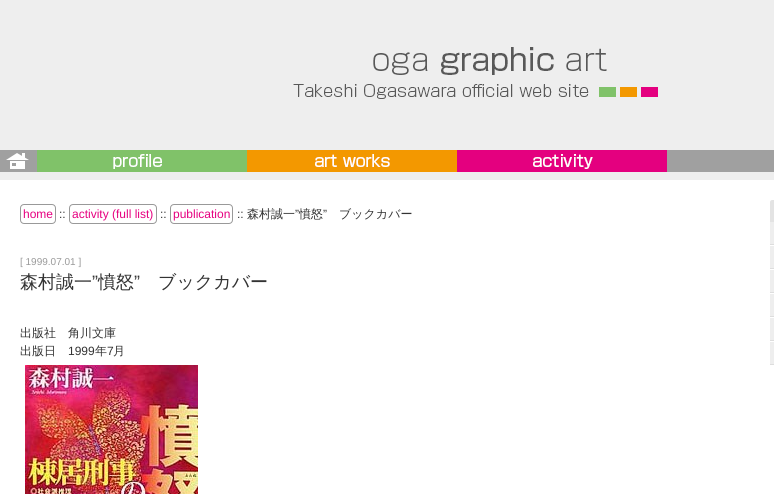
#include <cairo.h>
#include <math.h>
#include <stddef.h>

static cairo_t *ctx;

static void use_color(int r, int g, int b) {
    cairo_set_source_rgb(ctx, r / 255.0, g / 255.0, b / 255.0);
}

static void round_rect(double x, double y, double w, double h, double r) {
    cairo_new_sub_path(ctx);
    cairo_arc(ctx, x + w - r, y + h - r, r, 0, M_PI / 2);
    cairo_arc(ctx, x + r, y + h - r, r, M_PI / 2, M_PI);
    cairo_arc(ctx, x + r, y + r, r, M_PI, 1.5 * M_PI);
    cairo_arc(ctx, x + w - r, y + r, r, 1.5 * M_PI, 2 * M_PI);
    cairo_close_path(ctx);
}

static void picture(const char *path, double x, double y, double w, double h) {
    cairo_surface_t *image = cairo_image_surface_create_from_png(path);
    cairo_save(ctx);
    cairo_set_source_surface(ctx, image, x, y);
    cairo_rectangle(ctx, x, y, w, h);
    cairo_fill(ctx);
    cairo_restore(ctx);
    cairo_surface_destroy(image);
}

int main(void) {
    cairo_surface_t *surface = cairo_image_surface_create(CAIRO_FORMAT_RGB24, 774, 494);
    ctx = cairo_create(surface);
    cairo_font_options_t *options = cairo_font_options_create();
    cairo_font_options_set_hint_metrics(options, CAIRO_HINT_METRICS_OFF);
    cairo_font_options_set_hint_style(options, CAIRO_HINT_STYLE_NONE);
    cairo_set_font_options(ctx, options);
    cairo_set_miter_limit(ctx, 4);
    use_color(238, 238, 238);
    cairo_paint(ctx);
    picture("img1.png", 293, 47, 365, 52);
    use_color(160, 160, 160);
    cairo_rectangle(ctx, 0, 150, 774, 22);
    cairo_fill(ctx);
    picture("img2.png", 6, 153, 23, 16);
    picture("img3.png", 37, 150, 210, 22);
    picture("img4.png", 247, 150, 210, 22);
    picture("img5.png", 457, 150, 210, 22);
    use_color(255, 255, 255);
    cairo_rectangle(ctx, 0, 180, 774, 314);
    cairo_fill(ctx);
    round_rect(20.5, 204.5, 35, 19, 3.5);
    use_color(153, 153, 153);
    cairo_set_line_width(ctx, 1);
    cairo_stroke(ctx);
    cairo_select_font_face(ctx, "Liberation Sans", CAIRO_FONT_SLANT_NORMAL, CAIRO_FONT_WEIGHT_NORMAL);
    cairo_set_font_size(ctx, 12);
    use_color(230, 0, 128);
    cairo_move_to(ctx, 23, 218);
    cairo_show_text(ctx, "home");
    use_color(51, 51, 51);
    cairo_move_to(ctx, 59, 218);
    cairo_show_text(ctx, "::");
    round_rect(69.5, 204.5, 87, 19, 3.5);
    use_color(153, 153, 153);
    cairo_stroke(ctx);
    use_color(230, 0, 128);
    cairo_move_to(ctx, 72, 218);
    cairo_show_text(ctx, "activity (full list)");
    use_color(51, 51, 51);
    cairo_move_to(ctx, 160, 218);
    cairo_show_text(ctx, "::");
    round_rect(170.5, 204.5, 62, 19, 3.5);
    use_color(153, 153, 153);
    cairo_stroke(ctx);
    use_color(230, 0, 128);
    cairo_move_to(ctx, 173, 218);
    cairo_show_text(ctx, "publication");
    use_color(51, 51, 51);
    cairo_move_to(ctx, 237, 218);
    cairo_show_text(ctx, "::");
    cairo_select_font_face(ctx, "WenQuanYi Zen Hei Medium", CAIRO_FONT_SLANT_NORMAL, CAIRO_FONT_WEIGHT_NORMAL);
    cairo_move_to(ctx, 247, 218);
    cairo_show_text(ctx, "森村誠一");
    cairo_select_font_face(ctx, "Liberation Sans", CAIRO_FONT_SLANT_NORMAL, CAIRO_FONT_WEIGHT_NORMAL);
    cairo_move_to(ctx, 295, 218);
    cairo_show_text(ctx, "”");
    cairo_select_font_face(ctx, "WenQuanYi Zen Hei Medium", CAIRO_FONT_SLANT_NORMAL, CAIRO_FONT_WEIGHT_NORMAL);
    cairo_move_to(ctx, 299, 218);
    cairo_show_text(ctx, "憤怒");
    cairo_select_font_face(ctx, "Liberation Sans", CAIRO_FONT_SLANT_NORMAL, CAIRO_FONT_WEIGHT_NORMAL);
    cairo_move_to(ctx, 323, 218);
    cairo_show_text(ctx, "”");
    cairo_select_font_face(ctx, "WenQuanYi Zen Hei Medium", CAIRO_FONT_SLANT_NORMAL, CAIRO_FONT_WEIGHT_NORMAL);
    cairo_move_to(ctx, 339, 218);
    cairo_show_text(ctx, "ブックカバー");
    cairo_select_font_face(ctx, "Liberation Sans", CAIRO_FONT_SLANT_NORMAL, CAIRO_FONT_WEIGHT_NORMAL);
    cairo_set_font_size(ctx, 10);
    use_color(153, 153, 153);
    cairo_move_to(ctx, 20, 265);
    cairo_show_text(ctx, "[ 1999.07.01 ]");
    cairo_select_font_face(ctx, "WenQuanYi Zen Hei Medium", CAIRO_FONT_SLANT_NORMAL, CAIRO_FONT_WEIGHT_NORMAL);
    cairo_set_font_size(ctx, 18);
    use_color(51, 51, 51);
    cairo_move_to(ctx, 20, 288);
    cairo_show_text(ctx, "森村誠一");
    cairo_select_font_face(ctx, "Liberation Sans", CAIRO_FONT_SLANT_NORMAL, CAIRO_FONT_WEIGHT_NORMAL);
    cairo_move_to(ctx, 92, 288);
    cairo_show_text(ctx, "”");
    cairo_select_font_face(ctx, "WenQuanYi Zen Hei Medium", CAIRO_FONT_SLANT_NORMAL, CAIRO_FONT_WEIGHT_NORMAL);
    cairo_move_to(ctx, 98, 288);
    cairo_show_text(ctx, "憤怒");
    cairo_select_font_face(ctx, "Liberation Sans", CAIRO_FONT_SLANT_NORMAL, CAIRO_FONT_WEIGHT_NORMAL);
    cairo_move_to(ctx, 134, 288);
    cairo_show_text(ctx, "”");
    cairo_select_font_face(ctx, "WenQuanYi Zen Hei Medium", CAIRO_FONT_SLANT_NORMAL, CAIRO_FONT_WEIGHT_NORMAL);
    cairo_move_to(ctx, 158, 288);
    cairo_show_text(ctx, "ブックカバー");
    cairo_set_font_size(ctx, 12);
    cairo_move_to(ctx, 20, 337);
    cairo_show_text(ctx, "出版社　角川文庫");
    cairo_move_to(ctx, 20, 355);
    cairo_show_text(ctx, "出版日");
    cairo_select_font_face(ctx, "Liberation Sans", CAIRO_FONT_SLANT_NORMAL, CAIRO_FONT_WEIGHT_NORMAL);
    cairo_move_to(ctx, 68, 355);
    cairo_show_text(ctx, "1999");
    cairo_select_font_face(ctx, "WenQuanYi Zen Hei Medium", CAIRO_FONT_SLANT_NORMAL, CAIRO_FONT_WEIGHT_NORMAL);
    cairo_move_to(ctx, 95, 355);
    cairo_show_text(ctx, "年");
    cairo_select_font_face(ctx, "Liberation Sans", CAIRO_FONT_SLANT_NORMAL, CAIRO_FONT_WEIGHT_NORMAL);
    cairo_move_to(ctx, 107, 355);
    cairo_show_text(ctx, "7");
    cairo_select_font_face(ctx, "WenQuanYi Zen Hei Medium", CAIRO_FONT_SLANT_NORMAL, CAIRO_FONT_WEIGHT_NORMAL);
    cairo_move_to(ctx, 113, 355);
    cairo_show_text(ctx, "月");
    picture("img6.png", 25, 365, 173, 129);
    use_color(227, 227, 227);
    cairo_new_path(ctx);
    cairo_move_to(ctx, 772, 200);
    cairo_line_to(ctx, 774, 200);
    cairo_curve_to(ctx, 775, 200, 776, 201, 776, 202);
    cairo_line_to(ctx, 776, 222);
    cairo_line_to(ctx, 770, 222);
    cairo_line_to(ctx, 770, 202);
    cairo_curve_to(ctx, 770, 201, 771, 200, 772, 200);
    cairo_close_path(ctx);
    cairo_fill(ctx);
    use_color(238, 238, 238);
    cairo_rectangle(ctx, 770, 222, 4, 23);
    cairo_fill(ctx);
    use_color(221, 221, 221);
    cairo_rectangle(ctx, 770, 244, 4, 1);
    cairo_fill(ctx);
    use_color(238, 238, 238);
    cairo_rectangle(ctx, 770, 246, 4, 23);
    cairo_fill(ctx);
    use_color(221, 221, 221);
    cairo_rectangle(ctx, 770, 268, 4, 1);
    cairo_fill(ctx);
    use_color(238, 238, 238);
    cairo_rectangle(ctx, 770, 270, 4, 23);
    cairo_fill(ctx);
    use_color(221, 221, 221);
    cairo_rectangle(ctx, 770, 292, 4, 1);
    cairo_fill(ctx);
    use_color(238, 238, 238);
    cairo_rectangle(ctx, 770, 294, 4, 23);
    cairo_fill(ctx);
    use_color(221, 221, 221);
    cairo_rectangle(ctx, 770, 316, 4, 1);
    cairo_fill(ctx);
    use_color(238, 238, 238);
    cairo_rectangle(ctx, 770, 318, 4, 23);
    cairo_fill(ctx);
    use_color(221, 221, 221);
    cairo_rectangle(ctx, 770, 340, 4, 1);
    cairo_fill(ctx);
    use_color(238, 238, 238);
    cairo_rectangle(ctx, 770, 342, 4, 23);
    cairo_fill(ctx);
    use_color(221, 221, 221);
    cairo_rectangle(ctx, 770, 364, 4, 1);
    cairo_fill(ctx);
    cairo_surface_write_to_png(surface, "result.png");
    cairo_font_options_destroy(options);
    cairo_destroy(ctx);
    cairo_surface_destroy(surface);
    return 0;
}
